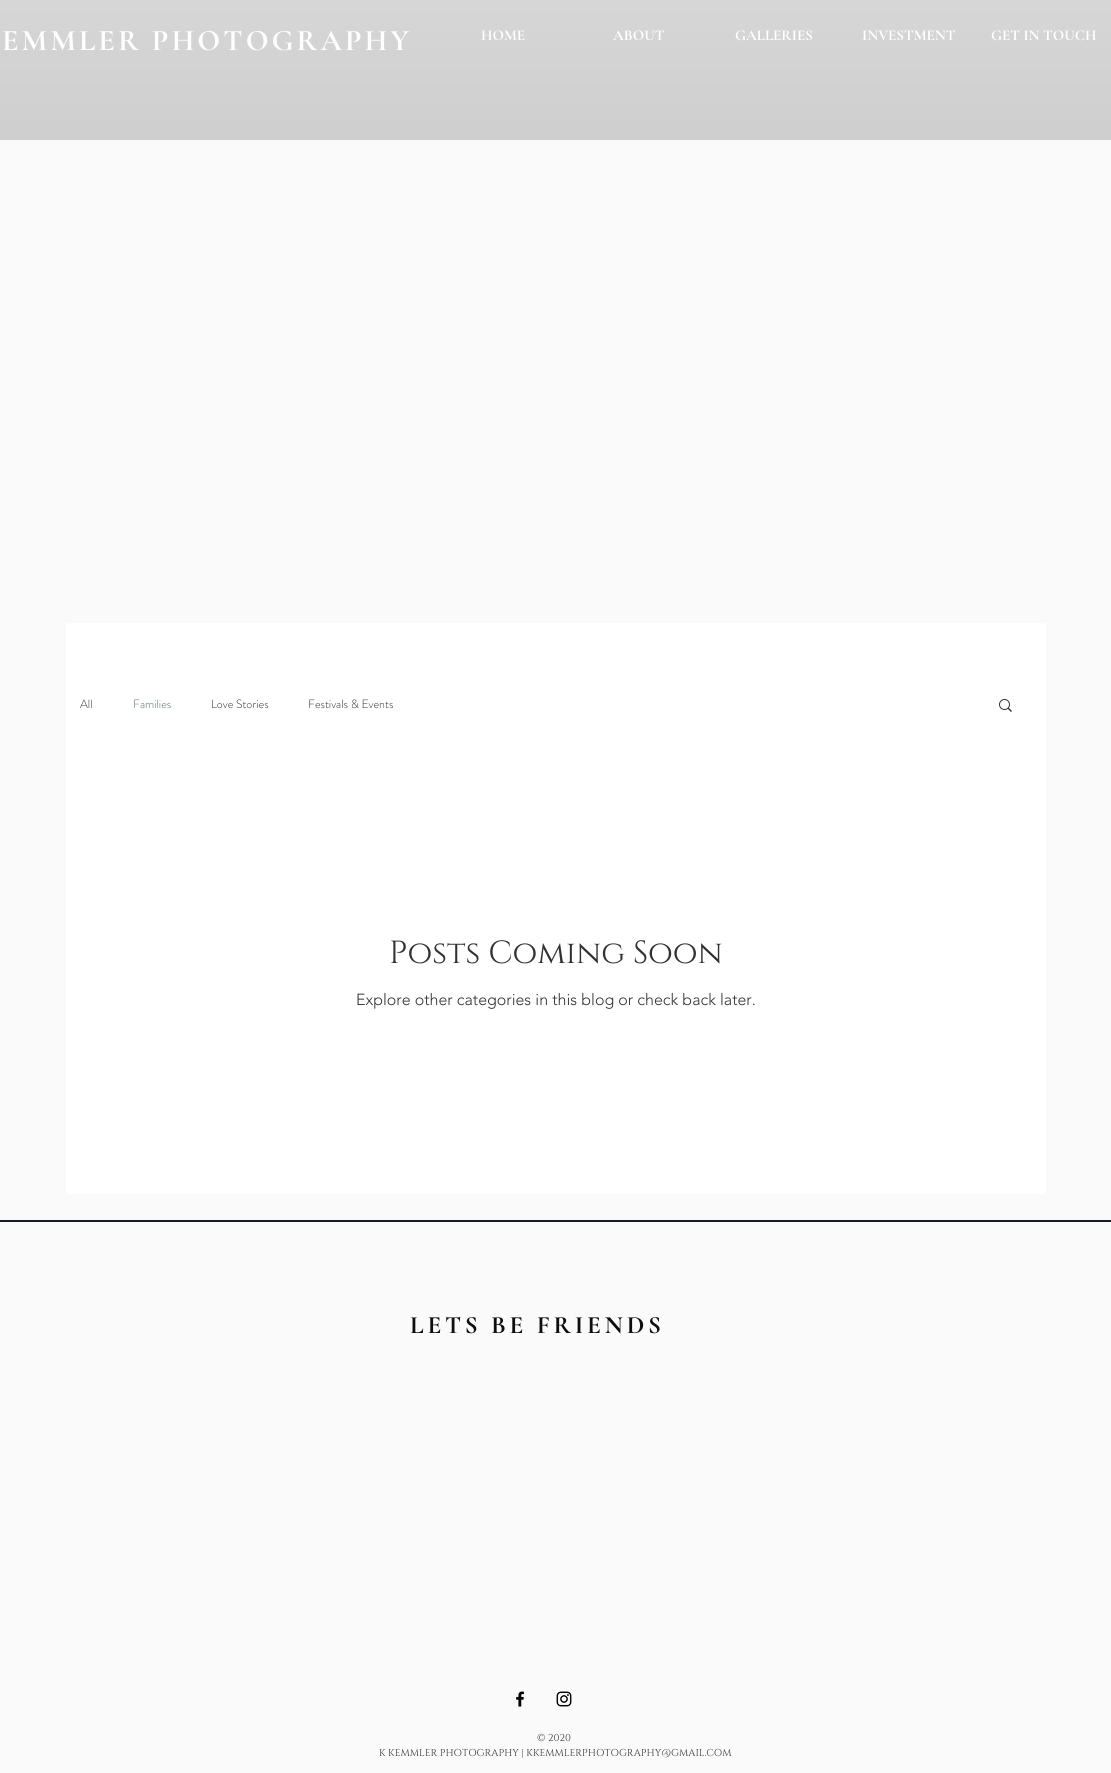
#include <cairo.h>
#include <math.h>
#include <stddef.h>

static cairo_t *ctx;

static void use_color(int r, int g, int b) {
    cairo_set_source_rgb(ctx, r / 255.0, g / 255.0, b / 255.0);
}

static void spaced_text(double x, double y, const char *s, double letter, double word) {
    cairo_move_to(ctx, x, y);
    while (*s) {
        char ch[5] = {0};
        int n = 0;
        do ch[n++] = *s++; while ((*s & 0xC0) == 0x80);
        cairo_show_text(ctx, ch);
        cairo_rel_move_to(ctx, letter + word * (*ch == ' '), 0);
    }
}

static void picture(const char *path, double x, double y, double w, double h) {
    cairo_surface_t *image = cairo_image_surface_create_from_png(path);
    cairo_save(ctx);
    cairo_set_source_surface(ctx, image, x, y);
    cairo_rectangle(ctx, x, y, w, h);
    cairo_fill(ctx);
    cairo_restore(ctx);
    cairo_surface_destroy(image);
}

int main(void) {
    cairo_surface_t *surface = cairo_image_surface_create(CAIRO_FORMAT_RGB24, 1111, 1773);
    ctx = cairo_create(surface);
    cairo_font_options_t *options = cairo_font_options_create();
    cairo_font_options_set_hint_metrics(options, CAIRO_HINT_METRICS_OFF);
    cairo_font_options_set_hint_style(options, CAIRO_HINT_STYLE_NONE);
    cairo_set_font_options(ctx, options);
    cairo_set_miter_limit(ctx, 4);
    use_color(250, 250, 250);
    cairo_paint(ctx);
    use_color(200, 200, 200);
    cairo_rectangle(ctx, 0, 0, 1111, 140);
    cairo_fill(ctx);
    picture("img1.png", 0, 0, 1111, 140);
    cairo_select_font_face(ctx, "Cormorant Garamond", CAIRO_FONT_SLANT_NORMAL, CAIRO_FONT_WEIGHT_BOLD);
    cairo_set_font_size(ctx, 30);
    use_color(255, 255, 255);
    spaced_text(2, 50, "EMMLER PHOTOGRAPHY", 3, 0);
    cairo_set_font_size(ctx, 15);
    cairo_move_to(ctx, 481, 40);
    cairo_show_text(ctx, "HOME");
    cairo_move_to(ctx, 613, 40);
    cairo_show_text(ctx, "ABOUT");
    cairo_move_to(ctx, 735, 40);
    cairo_show_text(ctx, "GALLERIES");
    cairo_move_to(ctx, 862, 40);
    cairo_show_text(ctx, "INVESTMENT");
    cairo_move_to(ctx, 991, 40);
    cairo_show_text(ctx, "GET IN TOUCH");
    cairo_rectangle(ctx, 66, 623, 980, 571);
    cairo_fill(ctx);
    cairo_select_font_face(ctx, "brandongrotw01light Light", CAIRO_FONT_SLANT_NORMAL, CAIRO_FONT_WEIGHT_NORMAL);
    cairo_set_font_size(ctx, 12);
    use_color(48, 49, 49);
    cairo_move_to(ctx, 80, 708);
    cairo_show_text(ctx, "All");
    use_color(92, 107, 122);
    cairo_move_to(ctx, 133, 708);
    cairo_show_text(ctx, "Families");
    use_color(48, 49, 49);
    cairo_move_to(ctx, 211, 708);
    cairo_show_text(ctx, "Love Stories");
    cairo_move_to(ctx, 308, 708);
    cairo_show_text(ctx, "Festivals & Events");
    picture("img2.png", 999, 699, 13, 13);
    cairo_select_font_face(ctx, "Cinzel", CAIRO_FONT_SLANT_NORMAL, CAIRO_FONT_WEIGHT_NORMAL);
    cairo_set_font_size(ctx, 32);
    cairo_move_to(ctx, 389, 963);
    cairo_show_text(ctx, "Posts Coming Soon");
    cairo_select_font_face(ctx, "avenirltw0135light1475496 Light", CAIRO_FONT_SLANT_NORMAL, CAIRO_FONT_WEIGHT_NORMAL);
    cairo_set_font_size(ctx, 16);
    cairo_move_to(ctx, 356, 1005);
    cairo_show_text(ctx, "Explore other categories in this blog or check back later.");
    use_color(20, 29, 39);
    cairo_rectangle(ctx, 0, 1220, 1111, 2);
    cairo_fill(ctx);
    cairo_select_font_face(ctx, "Cormorant Garamond", CAIRO_FONT_SLANT_NORMAL, CAIRO_FONT_WEIGHT_BOLD);
    cairo_set_font_size(ctx, 25);
    use_color(13, 13, 13);
    spaced_text(410, 1333, "LETS BE FRIENDS", 3.75, 0);
    picture("img3.png", 516, 1691, 9, 16);
    picture("img4.png", 556, 1691, 16, 16);
    cairo_select_font_face(ctx, "Cinzel", CAIRO_FONT_SLANT_NORMAL, CAIRO_FONT_WEIGHT_NORMAL);
    cairo_set_font_size(ctx, 10);
    use_color(48, 49, 49);
    cairo_move_to(ctx, 537, 1741);
    cairo_show_text(ctx, "© 2020");
    cairo_move_to(ctx, 379, 1756);
    cairo_show_text(ctx, "K KEMMLER PHOTOGRAPHY | KKEMMLERPHOTOGRAPHY@GMAIL.COM");
    cairo_surface_write_to_png(surface, "result.png");
    cairo_font_options_destroy(options);
    cairo_destroy(ctx);
    cairo_surface_destroy(surface);
    return 0;
}
